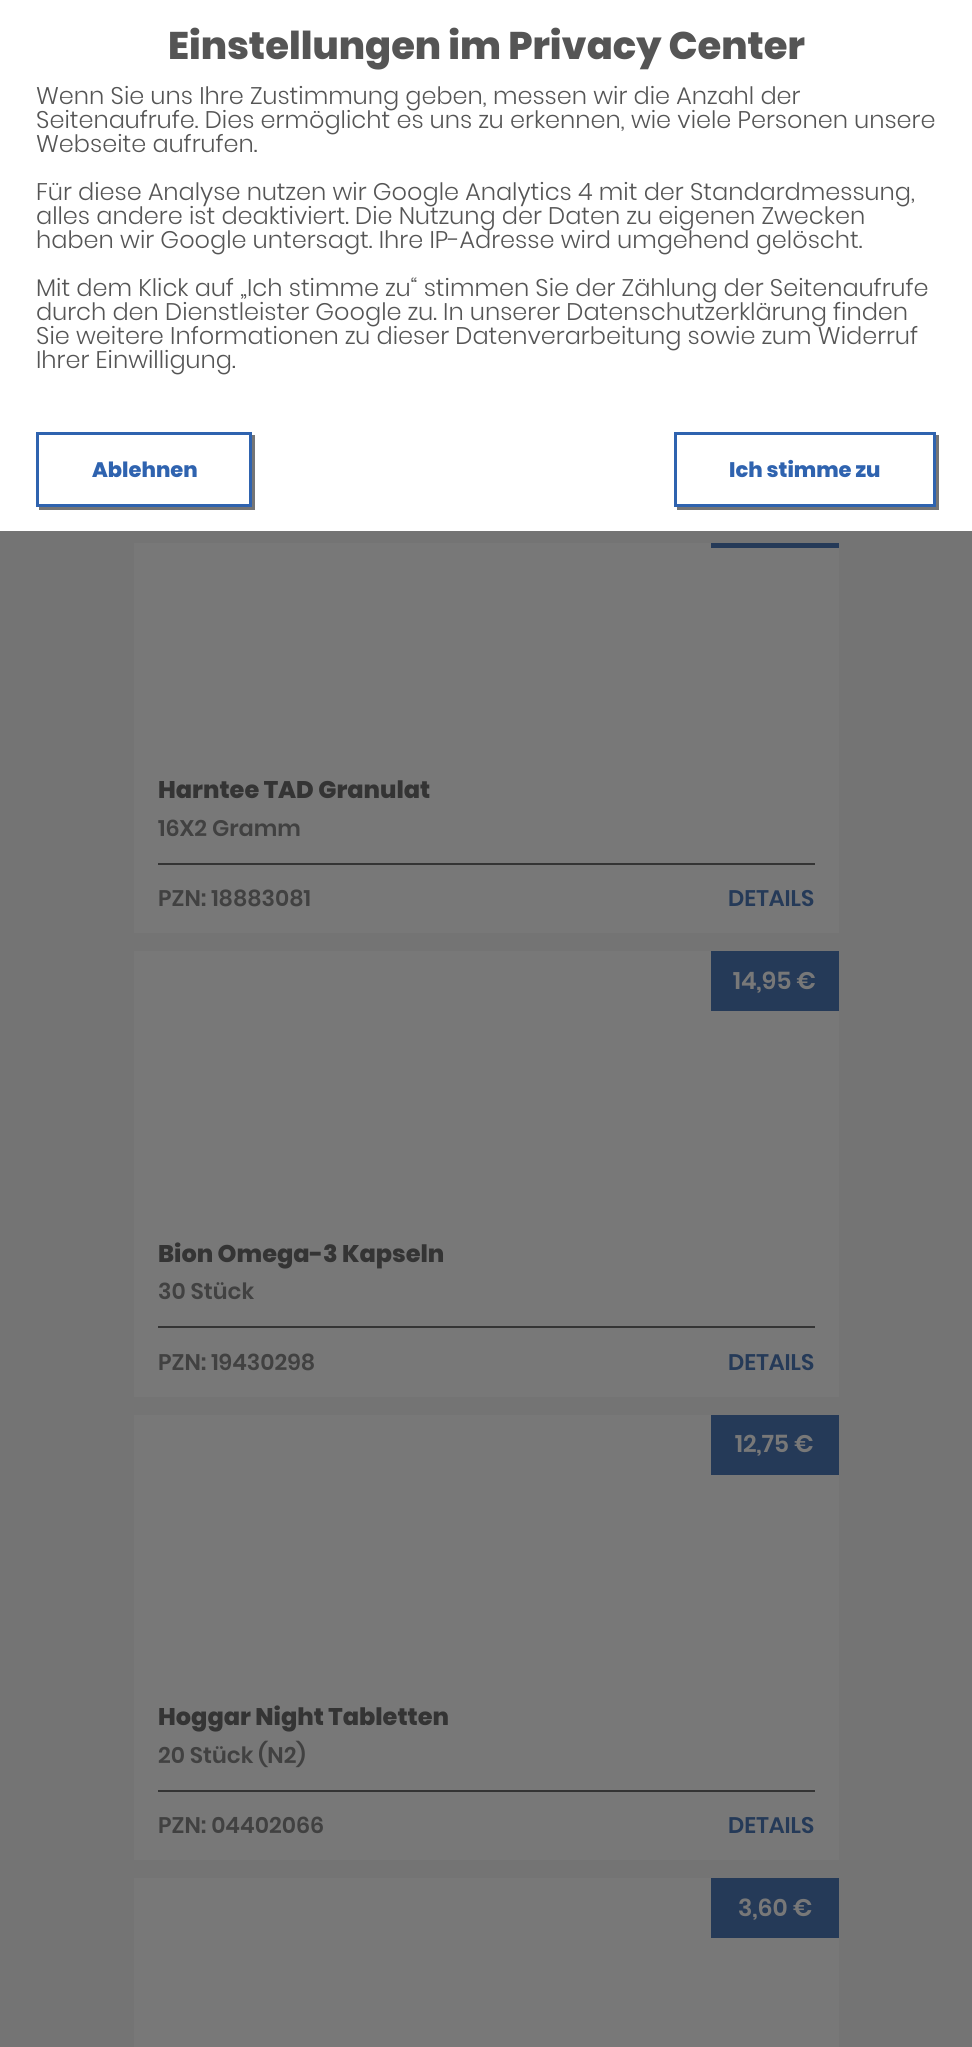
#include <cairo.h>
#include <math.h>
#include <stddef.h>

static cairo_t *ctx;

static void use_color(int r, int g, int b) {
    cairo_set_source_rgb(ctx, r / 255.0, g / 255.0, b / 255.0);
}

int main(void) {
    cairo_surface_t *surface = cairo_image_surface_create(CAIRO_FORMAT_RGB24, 972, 2047);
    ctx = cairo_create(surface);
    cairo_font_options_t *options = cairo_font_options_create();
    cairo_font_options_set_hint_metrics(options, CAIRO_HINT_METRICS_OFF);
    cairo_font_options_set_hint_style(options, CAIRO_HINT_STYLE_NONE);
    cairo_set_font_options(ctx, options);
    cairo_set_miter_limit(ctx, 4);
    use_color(116, 116, 116);
    cairo_paint(ctx);
    use_color(255, 255, 255);
    cairo_rectangle(ctx, 0, 0, 972, 531);
    cairo_fill(ctx);
    cairo_select_font_face(ctx, "Poppins ExtraBold", CAIRO_FONT_SLANT_NORMAL, CAIRO_FONT_WEIGHT_NORMAL);
    cairo_set_font_size(ctx, 38.4);
    use_color(85, 85, 85);
    cairo_move_to(ctx, 168, 59);
    cairo_show_text(ctx, "Einstellungen im Privacy Center");
    cairo_select_font_face(ctx, "Poppins Light", CAIRO_FONT_SLANT_NORMAL, CAIRO_FONT_WEIGHT_NORMAL);
    cairo_set_font_size(ctx, 24);
    cairo_move_to(ctx, 36, 104);
    cairo_show_text(ctx, "Wenn Sie uns Ihre Zustimmung geben, messen wir die Anzahl der");
    cairo_move_to(ctx, 36, 128);
    cairo_show_text(ctx, "Seitenaufrufe. Dies ermöglicht es uns zu erkennen, wie viele Personen unsere");
    cairo_move_to(ctx, 36, 152);
    cairo_show_text(ctx, "Webseite aufrufen.");
    cairo_move_to(ctx, 36, 200);
    cairo_show_text(ctx, "Für diese Analyse nutzen wir Google Analytics 4 mit der Standardmessung,");
    cairo_move_to(ctx, 36, 224);
    cairo_show_text(ctx, "alles andere ist deaktiviert. Die Nutzung der Daten zu eigenen Zwecken");
    cairo_move_to(ctx, 36, 248);
    cairo_show_text(ctx, "haben wir Google untersagt. Ihre IP-Adresse wird umgehend gelöscht.");
    cairo_move_to(ctx, 36, 296);
    cairo_show_text(ctx, "Mit dem Klick auf „Ich stimme zu“ stimmen Sie der Zählung der Seitenaufrufe");
    cairo_move_to(ctx, 36, 320);
    cairo_show_text(ctx, "durch den Dienstleister Google zu. In unserer Datenschutzerklärung finden");
    cairo_move_to(ctx, 36, 344);
    cairo_show_text(ctx, "Sie weitere Informationen zu dieser Datenverarbeitung sowie zum Widerruf");
    cairo_move_to(ctx, 36, 368);
    cairo_show_text(ctx, "Ihrer Einwilligung.");
    use_color(117, 117, 117);
    cairo_new_path(ctx);
    cairo_move_to(ctx, 39, 507);
    cairo_line_to(ctx, 39, 510);
    cairo_line_to(ctx, 255, 510);
    cairo_line_to(ctx, 255, 435);
    cairo_line_to(ctx, 252, 435);
    cairo_line_to(ctx, 252, 507);
    cairo_close_path(ctx);
    cairo_fill(ctx);
    cairo_rectangle(ctx, 37.5, 433.5, 213, 72);
    use_color(47, 99, 175);
    cairo_set_line_width(ctx, 3);
    cairo_stroke(ctx);
    cairo_select_font_face(ctx, "Poppins ExtraBold", CAIRO_FONT_SLANT_NORMAL, CAIRO_FONT_WEIGHT_NORMAL);
    cairo_set_font_size(ctx, 21);
    cairo_move_to(ctx, 92, 477);
    cairo_show_text(ctx, "Ablehnen");
    use_color(117, 117, 117);
    cairo_new_path(ctx);
    cairo_move_to(ctx, 677, 507);
    cairo_line_to(ctx, 677, 510);
    cairo_line_to(ctx, 939, 510);
    cairo_line_to(ctx, 939, 435);
    cairo_line_to(ctx, 936, 435);
    cairo_line_to(ctx, 936, 507);
    cairo_close_path(ctx);
    cairo_fill(ctx);
    cairo_rectangle(ctx, 675.5, 433.5, 259, 72);
    use_color(47, 99, 175);
    cairo_stroke(ctx);
    cairo_move_to(ctx, 729, 477);
    cairo_show_text(ctx, "Ich stimme zu");
    use_color(120, 120, 120);
    cairo_rectangle(ctx, 134, 543, 705, 390);
    cairo_fill(ctx);
    use_color(37, 58, 88);
    cairo_rectangle(ctx, 711, 543, 128, 5);
    cairo_fill(ctx);
    cairo_set_font_size(ctx, 24);
    use_color(52, 52, 52);
    cairo_move_to(ctx, 158, 798);
    cairo_show_text(ctx, "Harntee TAD Granulat");
    cairo_select_font_face(ctx, "Poppins SemiBold", CAIRO_FONT_SLANT_NORMAL, CAIRO_FONT_WEIGHT_NORMAL);
    cairo_set_font_size(ctx, 22.5);
    use_color(65, 65, 65);
    cairo_move_to(ctx, 158, 836);
    cairo_show_text(ctx, "16X2 Gramm");
    use_color(52, 52, 52);
    cairo_rectangle(ctx, 158, 863, 657, 2);
    cairo_fill(ctx);
    use_color(65, 65, 65);
    cairo_move_to(ctx, 158, 906);
    cairo_show_text(ctx, "PZN: 18883081");
    use_color(37, 58, 88);
    cairo_move_to(ctx, 728, 906);
    cairo_show_text(ctx, "DETAILS");
    use_color(120, 120, 120);
    cairo_rectangle(ctx, 134, 951, 705, 446);
    cairo_fill(ctx);
    use_color(37, 58, 88);
    cairo_rectangle(ctx, 711, 951, 128, 60);
    cairo_fill(ctx);
    cairo_set_font_size(ctx, 24);
    use_color(120, 120, 120);
    cairo_move_to(ctx, 733, 989);
    cairo_show_text(ctx, "14,95 €");
    cairo_select_font_face(ctx, "Poppins ExtraBold", CAIRO_FONT_SLANT_NORMAL, CAIRO_FONT_WEIGHT_NORMAL);
    use_color(52, 52, 52);
    cairo_move_to(ctx, 158, 1262);
    cairo_show_text(ctx, "Bion Omega-3 Kapseln");
    cairo_select_font_face(ctx, "Poppins SemiBold", CAIRO_FONT_SLANT_NORMAL, CAIRO_FONT_WEIGHT_NORMAL);
    cairo_set_font_size(ctx, 22.5);
    use_color(65, 65, 65);
    cairo_move_to(ctx, 158, 1299);
    cairo_show_text(ctx, "30 Stück");
    use_color(52, 52, 52);
    cairo_rectangle(ctx, 158, 1326, 657, 2);
    cairo_fill(ctx);
    use_color(65, 65, 65);
    cairo_move_to(ctx, 158, 1370);
    cairo_show_text(ctx, "PZN: 19430298");
    use_color(37, 58, 88);
    cairo_move_to(ctx, 728, 1370);
    cairo_show_text(ctx, "DETAILS");
    use_color(120, 120, 120);
    cairo_rectangle(ctx, 134, 1415, 705, 445);
    cairo_fill(ctx);
    use_color(37, 58, 88);
    cairo_rectangle(ctx, 711, 1415, 128, 60);
    cairo_fill(ctx);
    cairo_set_font_size(ctx, 24);
    use_color(120, 120, 120);
    cairo_move_to(ctx, 735, 1452);
    cairo_show_text(ctx, "12,75 €");
    cairo_select_font_face(ctx, "Poppins ExtraBold", CAIRO_FONT_SLANT_NORMAL, CAIRO_FONT_WEIGHT_NORMAL);
    use_color(52, 52, 52);
    cairo_move_to(ctx, 158, 1725);
    cairo_show_text(ctx, "Hoggar Night Tabletten");
    cairo_select_font_face(ctx, "Poppins SemiBold", CAIRO_FONT_SLANT_NORMAL, CAIRO_FONT_WEIGHT_NORMAL);
    cairo_set_font_size(ctx, 22.5);
    use_color(65, 65, 65);
    cairo_move_to(ctx, 158, 1763);
    cairo_show_text(ctx, "20 Stück (N2)");
    use_color(52, 52, 52);
    cairo_rectangle(ctx, 158, 1790, 657, 2);
    cairo_fill(ctx);
    use_color(65, 65, 65);
    cairo_move_to(ctx, 158, 1833);
    cairo_show_text(ctx, "PZN: 04402066");
    use_color(37, 58, 88);
    cairo_move_to(ctx, 728, 1833);
    cairo_show_text(ctx, "DETAILS");
    use_color(120, 120, 120);
    cairo_rectangle(ctx, 134, 1878, 705, 169);
    cairo_fill(ctx);
    use_color(37, 58, 88);
    cairo_rectangle(ctx, 711, 1878, 128, 60);
    cairo_fill(ctx);
    cairo_set_font_size(ctx, 24);
    use_color(120, 120, 120);
    cairo_move_to(ctx, 738, 1916);
    cairo_show_text(ctx, "3,60 €");
    cairo_surface_write_to_png(surface, "result.png");
    cairo_font_options_destroy(options);
    cairo_destroy(ctx);
    cairo_surface_destroy(surface);
    return 0;
}
